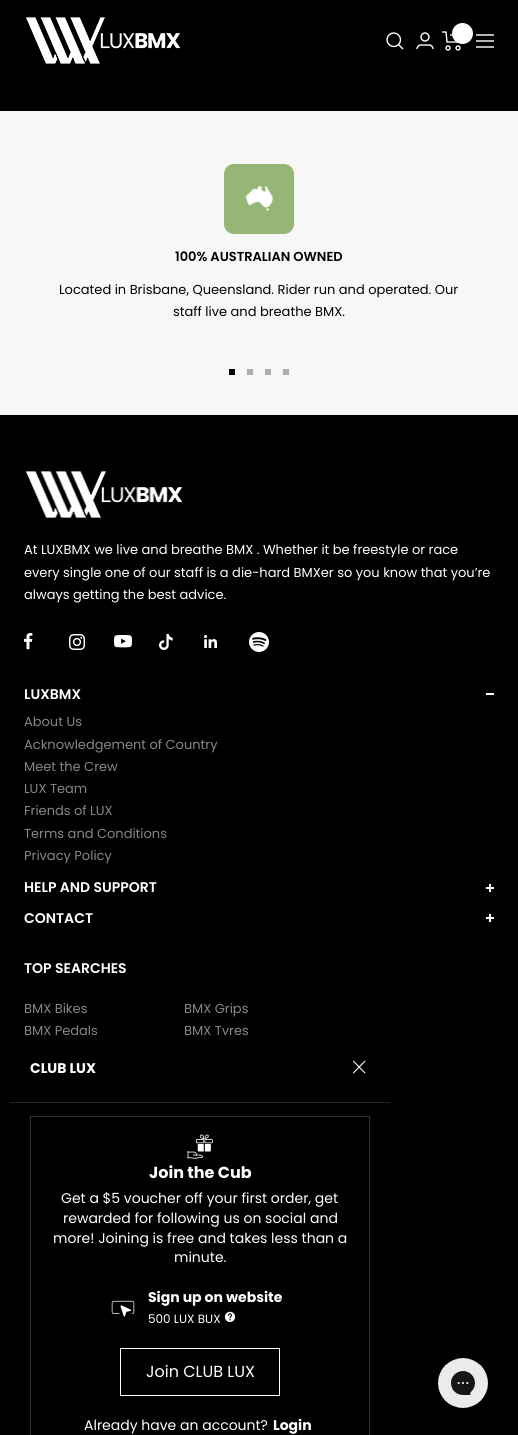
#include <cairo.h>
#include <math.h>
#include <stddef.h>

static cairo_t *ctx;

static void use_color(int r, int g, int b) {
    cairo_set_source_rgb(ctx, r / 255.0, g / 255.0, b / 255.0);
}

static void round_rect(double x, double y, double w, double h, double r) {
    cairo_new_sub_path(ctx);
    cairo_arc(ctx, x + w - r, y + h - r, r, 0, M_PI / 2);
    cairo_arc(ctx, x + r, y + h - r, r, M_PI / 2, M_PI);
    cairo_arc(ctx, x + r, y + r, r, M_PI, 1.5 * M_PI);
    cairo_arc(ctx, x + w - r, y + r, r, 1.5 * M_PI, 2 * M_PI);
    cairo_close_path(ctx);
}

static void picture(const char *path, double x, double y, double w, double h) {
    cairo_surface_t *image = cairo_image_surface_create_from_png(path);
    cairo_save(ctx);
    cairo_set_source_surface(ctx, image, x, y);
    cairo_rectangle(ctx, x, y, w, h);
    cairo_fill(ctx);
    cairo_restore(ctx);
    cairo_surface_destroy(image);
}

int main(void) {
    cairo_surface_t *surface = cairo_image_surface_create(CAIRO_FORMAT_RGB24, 518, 1435);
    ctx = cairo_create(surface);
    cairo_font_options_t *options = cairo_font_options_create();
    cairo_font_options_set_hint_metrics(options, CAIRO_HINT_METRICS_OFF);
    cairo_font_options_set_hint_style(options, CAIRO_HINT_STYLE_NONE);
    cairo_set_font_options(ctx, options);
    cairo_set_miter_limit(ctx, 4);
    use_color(0, 0, 0);
    cairo_paint(ctx);
    picture("img1.png", 26, 17, 154, 47);
    cairo_new_path(ctx);
    cairo_move_to(ctx, 398.5, 44.5);
    cairo_curve_to(ctx, 404.5, 38, 395.5, 29, 389, 35);
    cairo_curve_to(ctx, 383, 41.5, 392, 50.5, 398.5, 44.5);
    cairo_close_path(ctx);
    cairo_move_to(ctx, 398.5, 44.5);
    cairo_line_to(ctx, 403, 49);
    use_color(255, 255, 255);
    cairo_set_line_width(ctx, 1.4);
    cairo_stroke(ctx);
    picture("img2.png", 416, 32, 18, 17);
    picture("img3.png", 442, 31, 19, 20);
    cairo_arc(ctx, 462.5, 33.5, 10.5, 0, 2 * M_PI);
    cairo_fill(ctx);
    cairo_new_path(ctx);
    cairo_move_to(ctx, 476, 35);
    cairo_line_to(ctx, 494, 35);
    cairo_move_to(ctx, 476, 47);
    cairo_line_to(ctx, 494, 47);
    cairo_close_path(ctx);
    cairo_move_to(ctx, 476, 41);
    cairo_line_to(ctx, 494, 41);
    cairo_close_path(ctx);
    cairo_stroke(ctx);
    use_color(247, 247, 247);
    cairo_rectangle(ctx, 0, 111, 518, 304);
    cairo_fill(ctx);
    use_color(149, 182, 117);
    round_rect(224, 164, 70, 70, 10);
    cairo_fill(ctx);
    picture("img4.png", 245, 186, 28, 25);
    cairo_select_font_face(ctx, "Poppins SemiBold", CAIRO_FONT_SLANT_NORMAL, CAIRO_FONT_WEIGHT_NORMAL);
    cairo_set_font_size(ctx, 13);
    use_color(0, 0, 0);
    cairo_move_to(ctx, 175, 261);
    cairo_show_text(ctx, "100% AUSTRALIAN OWNED");
    cairo_select_font_face(ctx, "Poppins", CAIRO_FONT_SLANT_NORMAL, CAIRO_FONT_WEIGHT_NORMAL);
    cairo_move_to(ctx, 59, 294);
    cairo_show_text(ctx, "Located in Brisbane, Queensland. Rider run and operated. Our");
    cairo_move_to(ctx, 173, 316);
    cairo_show_text(ctx, "staff live and breathe BMX.");
    cairo_rectangle(ctx, 229, 369, 6, 6);
    cairo_fill(ctx);
    use_color(173, 173, 173);
    cairo_rectangle(ctx, 247, 369, 6, 6);
    cairo_fill(ctx);
    cairo_rectangle(ctx, 265, 369, 6, 6);
    cairo_fill(ctx);
    cairo_rectangle(ctx, 283, 369, 6, 6);
    cairo_fill(ctx);
    picture("img5.png", 26, 471, 156, 47);
    use_color(255, 255, 255);
    cairo_move_to(ctx, 24, 554);
    cairo_show_text(ctx, "At LUXBMX we live and breathe BMX . Whether it be freestyle or race");
    cairo_move_to(ctx, 24, 577);
    cairo_show_text(ctx, "every single one of our staff is a die-hard BMXer so you know that you’re");
    cairo_move_to(ctx, 24, 599);
    cairo_show_text(ctx, "always getting the best advice.");
    picture("img6.png", 24, 633, 9, 17);
    picture("img7.png", 69, 634, 16, 16);
    picture("img8.png", 114, 635, 18, 13);
    picture("img9.png", 159, 634, 14, 16);
    picture("img10.png", 204, 635, 13, 13);
    picture("img11.png", 249, 632, 20, 20);
    cairo_select_font_face(ctx, "Poppins SemiBold", CAIRO_FONT_SLANT_NORMAL, CAIRO_FONT_WEIGHT_NORMAL);
    cairo_set_font_size(ctx, 14);
    cairo_move_to(ctx, 24, 699);
    cairo_show_text(ctx, "LUXBMX");
    cairo_rectangle(ctx, 486, 693, 8, 2);
    cairo_fill(ctx);
    cairo_select_font_face(ctx, "Poppins", CAIRO_FONT_SLANT_NORMAL, CAIRO_FONT_WEIGHT_NORMAL);
    cairo_set_font_size(ctx, 13);
    use_color(136, 135, 135);
    cairo_move_to(ctx, 24, 726);
    cairo_show_text(ctx, "About Us");
    cairo_move_to(ctx, 24, 749);
    cairo_show_text(ctx, "Acknowledgement of Country");
    cairo_move_to(ctx, 24, 771);
    cairo_show_text(ctx, "Meet the Crew");
    cairo_move_to(ctx, 24, 793);
    cairo_show_text(ctx, "LUX Team");
    cairo_move_to(ctx, 24, 815);
    cairo_show_text(ctx, "Friends of LUX");
    cairo_move_to(ctx, 24, 838);
    cairo_show_text(ctx, "Terms and Conditions");
    cairo_move_to(ctx, 24, 860);
    cairo_show_text(ctx, "Privacy Policy");
    cairo_select_font_face(ctx, "Poppins SemiBold", CAIRO_FONT_SLANT_NORMAL, CAIRO_FONT_WEIGHT_NORMAL);
    cairo_set_font_size(ctx, 14);
    use_color(255, 255, 255);
    cairo_move_to(ctx, 24, 892);
    cairo_show_text(ctx, "HELP AND SUPPORT");
    picture("img12.png", 486, 884, 8, 8);
    cairo_move_to(ctx, 24, 923);
    cairo_show_text(ctx, "CONTACT");
    picture("img12.png", 486, 914, 8, 8);
    cairo_move_to(ctx, 24, 973);
    cairo_show_text(ctx, "TOP SEARCHES");
    cairo_select_font_face(ctx, "Poppins", CAIRO_FONT_SLANT_NORMAL, CAIRO_FONT_WEIGHT_NORMAL);
    cairo_set_font_size(ctx, 13);
    use_color(136, 135, 135);
    cairo_move_to(ctx, 24, 1013);
    cairo_show_text(ctx, "BMX Bikes");
    cairo_move_to(ctx, 184, 1013);
    cairo_show_text(ctx, "BMX Grips");
    cairo_move_to(ctx, 24, 1035);
    cairo_show_text(ctx, "BMX Pedals");
    cairo_move_to(ctx, 184, 1035);
    cairo_show_text(ctx, "BMX Tyres");
    use_color(0, 0, 0);
    cairo_new_path(ctx);
    cairo_move_to(ctx, 20, 1035);
    cairo_line_to(ctx, 380, 1035);
    cairo_curve_to(ctx, 385.5, 1035, 390, 1039.5, 390, 1045);
    cairo_line_to(ctx, 390, 1435);
    cairo_line_to(ctx, 20, 1435);
    cairo_curve_to(ctx, 14.5, 1435, 10, 1430.5, 10, 1425);
    cairo_line_to(ctx, 10, 1045);
    cairo_curve_to(ctx, 10, 1039.5, 14.5, 1035, 20, 1035);
    cairo_close_path(ctx);
    cairo_fill(ctx);
    use_color(38, 38, 38);
    cairo_rectangle(ctx, 10, 1102, 380, 1);
    cairo_fill(ctx);
    cairo_select_font_face(ctx, "Poppins", CAIRO_FONT_SLANT_NORMAL, CAIRO_FONT_WEIGHT_BOLD);
    cairo_set_font_size(ctx, 14);
    use_color(255, 255, 255);
    cairo_move_to(ctx, 30, 1073);
    cairo_show_text(ctx, "CLUB LUX");
    picture("img13.png", 353, 1060, 13, 14);
    use_color(51, 51, 51);
    cairo_new_path(ctx);
    cairo_move_to(ctx, 30, 1116);
    cairo_line_to(ctx, 30, 1435);
    cairo_line_to(ctx, 31, 1435);
    cairo_line_to(ctx, 31, 1117);
    cairo_line_to(ctx, 369, 1117);
    cairo_line_to(ctx, 369, 1435);
    cairo_line_to(ctx, 370, 1435);
    cairo_line_to(ctx, 370, 1116);
    cairo_close_path(ctx);
    cairo_fill(ctx);
    picture("img14.png", 187, 1134, 26, 25);
    cairo_set_font_size(ctx, 16);
    use_color(255, 255, 255);
    cairo_move_to(ctx, 149, 1178);
    cairo_show_text(ctx, "Join the Cub");
    cairo_select_font_face(ctx, "Poppins", CAIRO_FONT_SLANT_NORMAL, CAIRO_FONT_WEIGHT_NORMAL);
    cairo_set_font_size(ctx, 14);
    cairo_move_to(ctx, 61, 1203);
    cairo_show_text(ctx, "Get a $5 voucher off your first order, get");
    cairo_move_to(ctx, 63, 1223);
    cairo_show_text(ctx, "rewarded for following us on social and");
    cairo_move_to(ctx, 53, 1243);
    cairo_show_text(ctx, "more! Joining is free and takes less than a");
    cairo_move_to(ctx, 174, 1262);
    cairo_show_text(ctx, "minute.");
    picture("img15.png", 111, 1300, 24, 17);
    cairo_select_font_face(ctx, "Poppins", CAIRO_FONT_SLANT_NORMAL, CAIRO_FONT_WEIGHT_BOLD);
    cairo_move_to(ctx, 148, 1302);
    cairo_show_text(ctx, "Sign up on website");
    cairo_select_font_face(ctx, "Poppins", CAIRO_FONT_SLANT_NORMAL, CAIRO_FONT_WEIGHT_NORMAL);
    cairo_set_font_size(ctx, 12);
    cairo_move_to(ctx, 148, 1323);
    cairo_show_text(ctx, "500 LUX BUX");
    picture("img16.png", 224, 1311, 12, 11);
    cairo_rectangle(ctx, 120.5, 1348.5, 159, 47);
    cairo_set_line_width(ctx, 1);
    cairo_stroke(ctx);
    cairo_set_font_size(ctx, 16);
    cairo_move_to(ctx, 146, 1377);
    cairo_show_text(ctx, "Join CLUB LUX");
    cairo_set_font_size(ctx, 14);
    cairo_move_to(ctx, 84, 1430);
    cairo_show_text(ctx, "Already have an account?");
    cairo_select_font_face(ctx, "Poppins", CAIRO_FONT_SLANT_NORMAL, CAIRO_FONT_WEIGHT_BOLD);
    cairo_move_to(ctx, 273, 1430);
    cairo_show_text(ctx, "Login");
    picture("img17.png", 438, 1358, 50, 50);
    cairo_surface_write_to_png(surface, "result.png");
    cairo_font_options_destroy(options);
    cairo_destroy(ctx);
    cairo_surface_destroy(surface);
    return 0;
}
